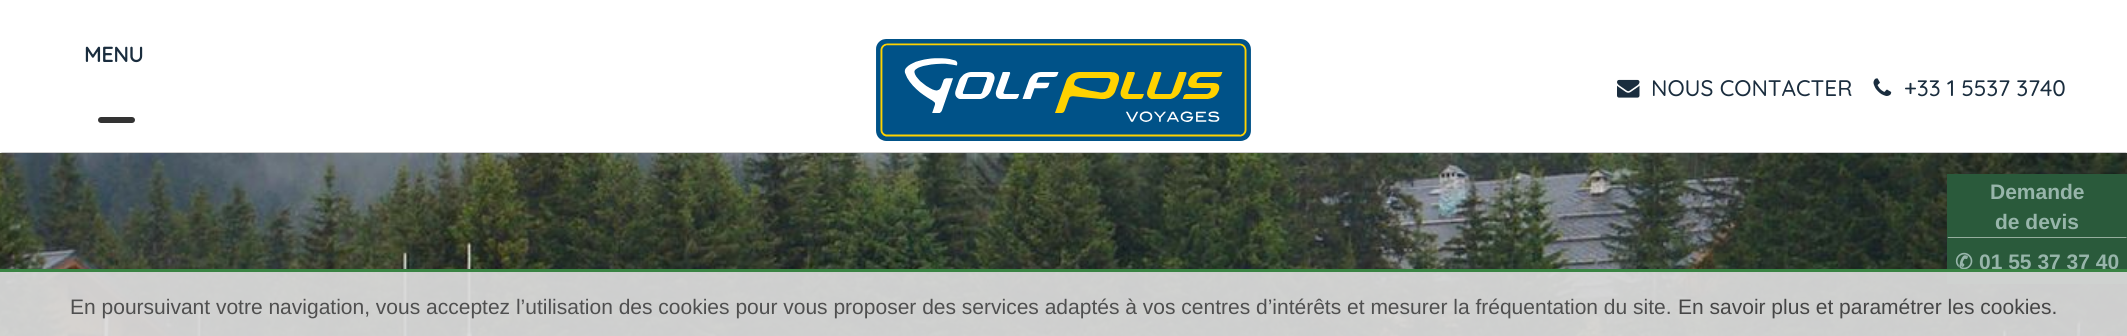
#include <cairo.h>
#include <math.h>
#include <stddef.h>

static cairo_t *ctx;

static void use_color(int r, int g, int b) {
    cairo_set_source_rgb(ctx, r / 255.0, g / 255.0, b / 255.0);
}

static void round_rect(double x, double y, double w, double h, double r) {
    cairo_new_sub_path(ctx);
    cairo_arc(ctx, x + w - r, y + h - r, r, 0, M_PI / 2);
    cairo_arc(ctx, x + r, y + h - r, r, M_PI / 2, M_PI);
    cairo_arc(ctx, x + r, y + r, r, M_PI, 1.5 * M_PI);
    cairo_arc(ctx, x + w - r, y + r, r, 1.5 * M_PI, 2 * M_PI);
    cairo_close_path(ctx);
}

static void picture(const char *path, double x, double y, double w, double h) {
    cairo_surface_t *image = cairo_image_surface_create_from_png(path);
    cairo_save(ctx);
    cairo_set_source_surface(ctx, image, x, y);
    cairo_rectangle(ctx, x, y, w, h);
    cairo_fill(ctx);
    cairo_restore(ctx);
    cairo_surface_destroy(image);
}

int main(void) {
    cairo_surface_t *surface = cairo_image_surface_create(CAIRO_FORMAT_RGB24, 2127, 336);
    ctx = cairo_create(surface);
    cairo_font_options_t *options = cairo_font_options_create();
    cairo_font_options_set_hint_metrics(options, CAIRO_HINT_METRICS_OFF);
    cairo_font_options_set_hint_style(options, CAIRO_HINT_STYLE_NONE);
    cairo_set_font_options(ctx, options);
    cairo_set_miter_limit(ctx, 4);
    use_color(255, 255, 255);
    cairo_paint(ctx);
    use_color(204, 204, 204);
    cairo_new_path(ctx);
    cairo_move_to(ctx, 2127, 153);
    cairo_line_to(ctx, 0, 153);
    cairo_line_to(ctx, 2, 152);
    cairo_line_to(ctx, 2126, 152);
    cairo_close_path(ctx);
    cairo_fill(ctx);
    cairo_select_font_face(ctx, "Quicksand", CAIRO_FONT_SLANT_NORMAL, CAIRO_FONT_WEIGHT_BOLD);
    cairo_set_font_size(ctx, 21);
    use_color(26, 45, 62);
    cairo_move_to(ctx, 84, 62);
    cairo_show_text(ctx, "MENU");
    use_color(51, 51, 51);
    round_rect(98, 117, 37, 6, 3);
    cairo_fill(ctx);
    picture("img1.png", 876, 39, 375, 102);
    picture("img2.png", 1617, 79, 23, 19);
    cairo_select_font_face(ctx, "Quicksand Light", CAIRO_FONT_SLANT_NORMAL, CAIRO_FONT_WEIGHT_NORMAL);
    cairo_set_font_size(ctx, 22.5);
    use_color(26, 45, 62);
    cairo_move_to(ctx, 1651, 96);
    cairo_show_text(ctx, "NOUS CONTACTER");
    picture("img3.png", 1873, 78, 19, 18);
    cairo_move_to(ctx, 1904, 96);
    cairo_show_text(ctx, "+33 1 5537 3740");
    picture("img4.png", 0, 153, 2127, 183);
    use_color(42, 90, 59);
    cairo_rectangle(ctx, 1947, 174, 180, 110);
    cairo_fill(ctx);
    use_color(149, 173, 157);
    cairo_new_path(ctx);
    cairo_move_to(ctx, 2127, 238);
    cairo_line_to(ctx, 1947, 238);
    cairo_line_to(ctx, 1948, 237);
    cairo_line_to(ctx, 2126, 237);
    cairo_close_path(ctx);
    cairo_fill(ctx);
    use_color(42, 90, 59);
    cairo_new_path(ctx);
    cairo_move_to(ctx, 1947, 238);
    cairo_line_to(ctx, 1947, 174);
    cairo_line_to(ctx, 1948, 176);
    cairo_line_to(ctx, 1948, 237);
    cairo_close_path(ctx);
    cairo_fill(ctx);
    cairo_select_font_face(ctx, "Liberation Sans", CAIRO_FONT_SLANT_NORMAL, CAIRO_FONT_WEIGHT_BOLD);
    cairo_set_font_size(ctx, 21);
    use_color(151, 181, 170);
    cairo_move_to(ctx, 1990, 199);
    cairo_show_text(ctx, "Demande");
    cairo_move_to(ctx, 1995, 229);
    cairo_show_text(ctx, "de devis");
    cairo_select_font_face(ctx, "DejaVu Sans", CAIRO_FONT_SLANT_NORMAL, CAIRO_FONT_WEIGHT_BOLD);
    cairo_move_to(ctx, 1955, 269);
    cairo_show_text(ctx, "✆");
    cairo_select_font_face(ctx, "Liberation Sans", CAIRO_FONT_SLANT_NORMAL, CAIRO_FONT_WEIGHT_BOLD);
    cairo_move_to(ctx, 1979, 269);
    cairo_show_text(ctx, "01 55 37 37 40");
    cairo_set_source_rgba(ctx, 0.859, 0.859, 0.859, 0.93);
    cairo_rectangle(ctx, 0, 272, 2127, 64);
    cairo_fill(ctx);
    use_color(57, 131, 67);
    cairo_rectangle(ctx, 0, 269, 2127, 3);
    cairo_fill(ctx);
    cairo_select_font_face(ctx, "Liberation Sans", CAIRO_FONT_SLANT_NORMAL, CAIRO_FONT_WEIGHT_NORMAL);
    use_color(79, 79, 79);
    cairo_move_to(ctx, 70, 314);
    cairo_show_text(ctx, "En poursuivant votre navigation, vous acceptez l’utilisation des cookies pour vous proposer des services adaptés à vos centres d’intérêts et mesurer la fréquentation du site.");
    use_color(70, 70, 70);
    cairo_move_to(ctx, 1678, 314);
    cairo_show_text(ctx, "En savoir plus et paramétrer les cookies.");
    cairo_surface_write_to_png(surface, "result.png");
    cairo_font_options_destroy(options);
    cairo_destroy(ctx);
    cairo_surface_destroy(surface);
    return 0;
}
